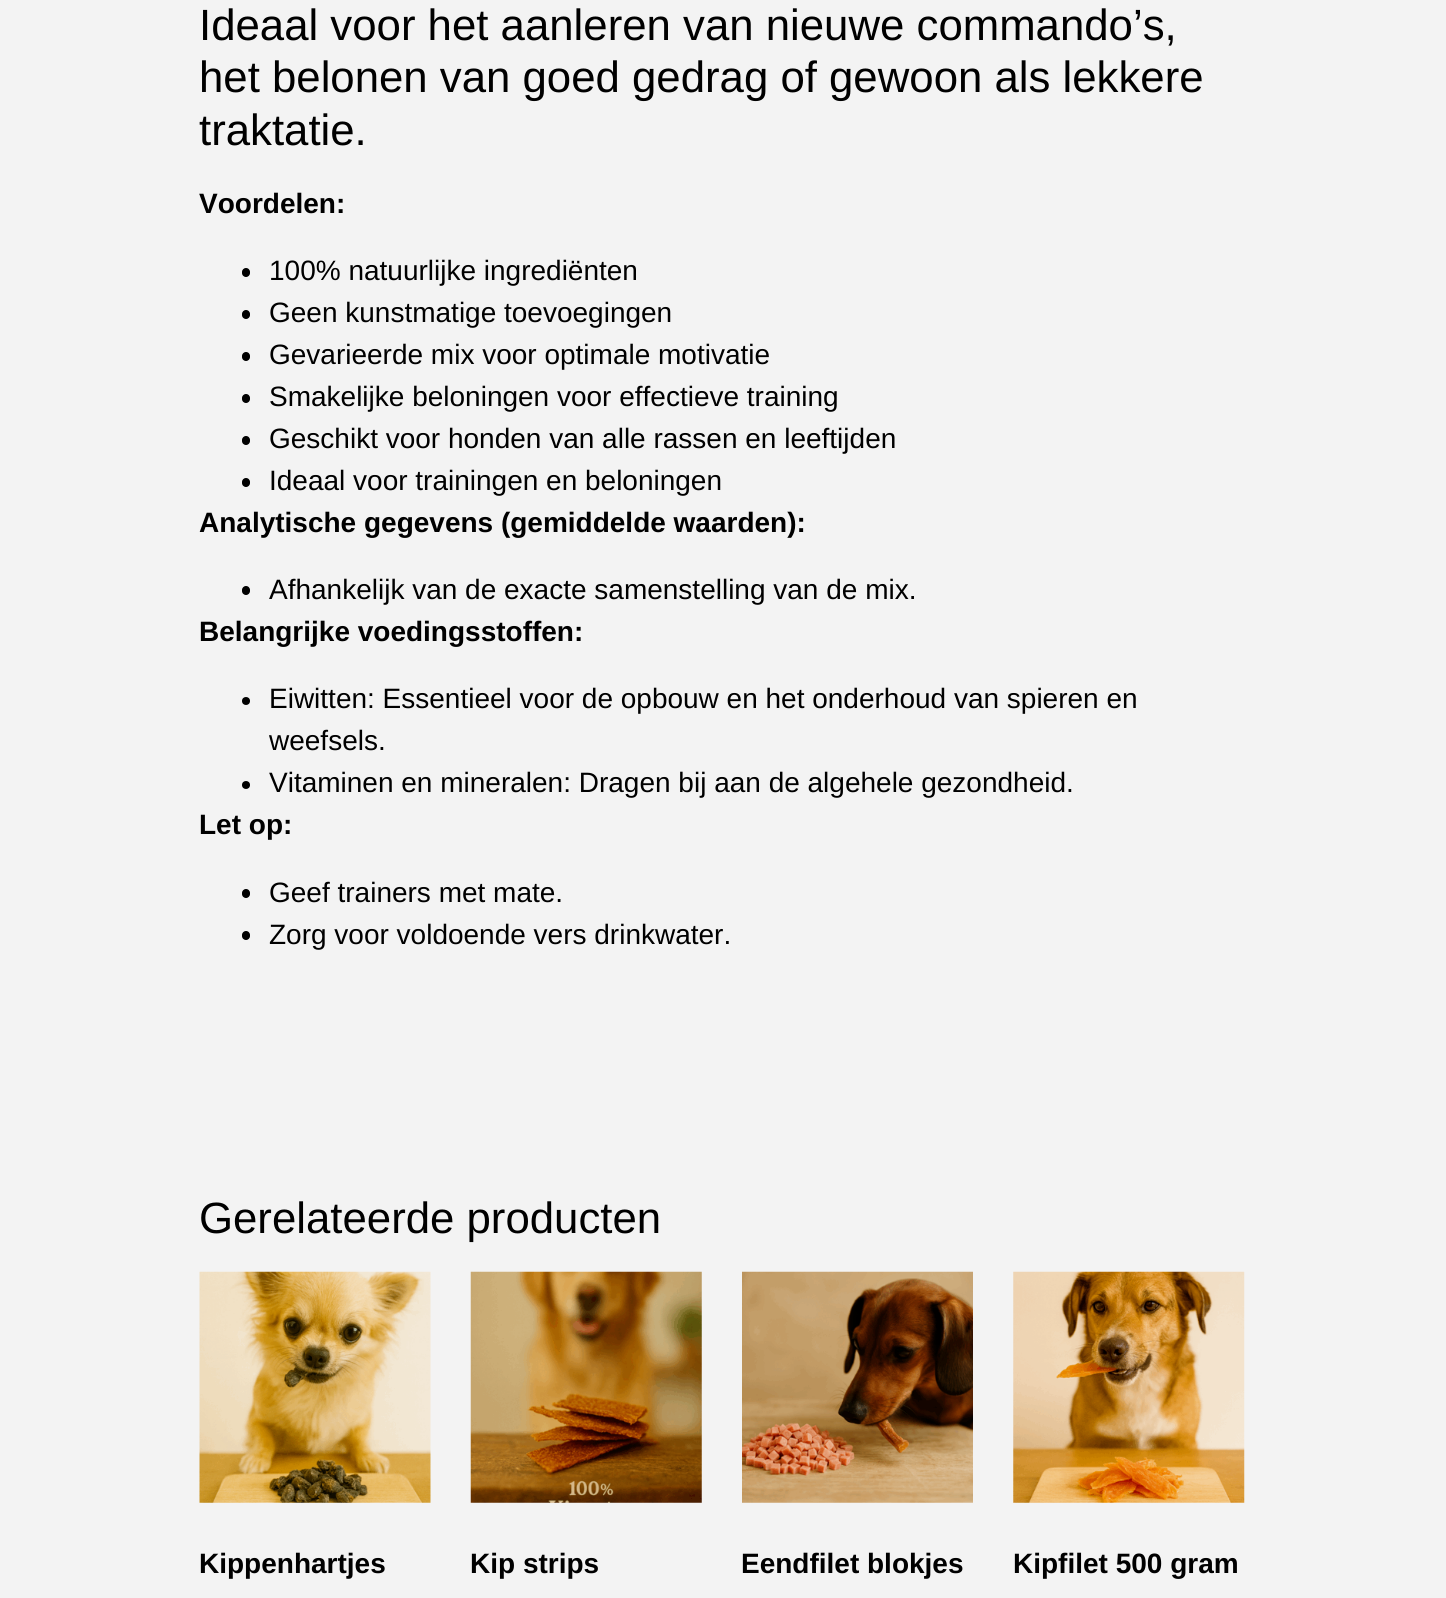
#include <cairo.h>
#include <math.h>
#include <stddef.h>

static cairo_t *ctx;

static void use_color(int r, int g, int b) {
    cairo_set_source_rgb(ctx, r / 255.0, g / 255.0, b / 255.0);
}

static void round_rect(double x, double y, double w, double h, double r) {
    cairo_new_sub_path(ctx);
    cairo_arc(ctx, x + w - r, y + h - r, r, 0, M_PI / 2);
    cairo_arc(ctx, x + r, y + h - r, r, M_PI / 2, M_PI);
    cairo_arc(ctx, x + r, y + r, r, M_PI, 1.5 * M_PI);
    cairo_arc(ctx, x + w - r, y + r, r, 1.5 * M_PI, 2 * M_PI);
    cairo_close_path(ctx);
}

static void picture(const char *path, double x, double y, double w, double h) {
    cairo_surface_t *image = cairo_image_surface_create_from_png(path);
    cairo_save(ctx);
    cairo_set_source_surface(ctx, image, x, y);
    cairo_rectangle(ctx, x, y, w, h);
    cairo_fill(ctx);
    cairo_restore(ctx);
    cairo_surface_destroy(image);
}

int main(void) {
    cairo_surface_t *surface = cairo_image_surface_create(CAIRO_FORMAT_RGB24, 1446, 1598);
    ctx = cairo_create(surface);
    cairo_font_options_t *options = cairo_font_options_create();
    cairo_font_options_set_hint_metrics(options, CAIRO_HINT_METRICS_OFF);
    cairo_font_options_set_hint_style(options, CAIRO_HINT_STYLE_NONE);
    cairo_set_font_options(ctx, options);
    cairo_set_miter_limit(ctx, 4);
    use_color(243, 243, 243);
    cairo_paint(ctx);
    cairo_select_font_face(ctx, "Liberation Sans", CAIRO_FONT_SLANT_NORMAL, CAIRO_FONT_WEIGHT_NORMAL);
    cairo_set_font_size(ctx, 43.75);
    use_color(0, 0, 0);
    cairo_move_to(ctx, 199, 40);
    cairo_show_text(ctx, "Ideaal voor het aanleren van nieuwe commando’s,");
    cairo_move_to(ctx, 199, 92);
    cairo_show_text(ctx, "het belonen van goed gedrag of gewoon als lekkere");
    cairo_move_to(ctx, 199, 145);
    cairo_show_text(ctx, "traktatie.");
    cairo_select_font_face(ctx, "Liberation Sans", CAIRO_FONT_SLANT_NORMAL, CAIRO_FONT_WEIGHT_BOLD);
    cairo_set_font_size(ctx, 28);
    cairo_move_to(ctx, 199, 213);
    cairo_show_text(ctx, "Voordelen:");
    round_rect(242, 268, 8, 9, 4);
    cairo_fill(ctx);
    cairo_select_font_face(ctx, "Liberation Sans", CAIRO_FONT_SLANT_NORMAL, CAIRO_FONT_WEIGHT_NORMAL);
    cairo_move_to(ctx, 269, 280);
    cairo_show_text(ctx, "100% natuurlijke ingrediënten");
    round_rect(242, 310, 8, 9, 4);
    cairo_fill(ctx);
    cairo_move_to(ctx, 269, 322);
    cairo_show_text(ctx, "Geen kunstmatige toevoegingen");
    round_rect(242, 352, 8, 9, 4);
    cairo_fill(ctx);
    cairo_move_to(ctx, 269, 364);
    cairo_show_text(ctx, "Gevarieerde mix voor optimale motivatie");
    round_rect(242, 394, 8, 9, 4);
    cairo_fill(ctx);
    cairo_move_to(ctx, 269, 406);
    cairo_show_text(ctx, "Smakelijke beloningen voor effectieve training");
    round_rect(242, 436, 8, 9, 4);
    cairo_fill(ctx);
    cairo_move_to(ctx, 269, 448);
    cairo_show_text(ctx, "Geschikt voor honden van alle rassen en leeftijden");
    round_rect(242, 478, 8, 9, 4);
    cairo_fill(ctx);
    cairo_move_to(ctx, 269, 490);
    cairo_show_text(ctx, "Ideaal voor trainingen en beloningen");
    cairo_select_font_face(ctx, "Liberation Sans", CAIRO_FONT_SLANT_NORMAL, CAIRO_FONT_WEIGHT_BOLD);
    cairo_move_to(ctx, 199, 532);
    cairo_show_text(ctx, "Analytische gegevens (gemiddelde waarden):");
    round_rect(242, 586, 8, 9, 4);
    cairo_fill(ctx);
    cairo_select_font_face(ctx, "Liberation Sans", CAIRO_FONT_SLANT_NORMAL, CAIRO_FONT_WEIGHT_NORMAL);
    cairo_move_to(ctx, 269, 599);
    cairo_show_text(ctx, "Afhankelijk van de exacte samenstelling van de mix.");
    cairo_select_font_face(ctx, "Liberation Sans", CAIRO_FONT_SLANT_NORMAL, CAIRO_FONT_WEIGHT_BOLD);
    cairo_move_to(ctx, 199, 641);
    cairo_show_text(ctx, "Belangrijke voedingsstoffen:");
    cairo_new_path(ctx);
    cairo_arc(ctx, 246, 701, 4, 0, 2 * M_PI);
    cairo_fill(ctx);
    cairo_select_font_face(ctx, "Liberation Sans", CAIRO_FONT_SLANT_NORMAL, CAIRO_FONT_WEIGHT_NORMAL);
    cairo_move_to(ctx, 269, 708);
    cairo_show_text(ctx, "Eiwitten: Essentieel voor de opbouw en het onderhoud van spieren en");
    cairo_move_to(ctx, 269, 750);
    cairo_show_text(ctx, "weefsels.");
    cairo_new_path(ctx);
    cairo_arc(ctx, 246, 785, 4, 0, 2 * M_PI);
    cairo_fill(ctx);
    cairo_move_to(ctx, 269, 792);
    cairo_show_text(ctx, "Vitaminen en mineralen: Dragen bij aan de algehele gezondheid.");
    cairo_select_font_face(ctx, "Liberation Sans", CAIRO_FONT_SLANT_NORMAL, CAIRO_FONT_WEIGHT_BOLD);
    cairo_move_to(ctx, 199, 834);
    cairo_show_text(ctx, "Let op:");
    round_rect(242, 889, 8, 9, 4);
    cairo_fill(ctx);
    cairo_select_font_face(ctx, "Liberation Sans", CAIRO_FONT_SLANT_NORMAL, CAIRO_FONT_WEIGHT_NORMAL);
    cairo_move_to(ctx, 269, 902);
    cairo_show_text(ctx, "Geef trainers met mate.");
    round_rect(242, 931, 8, 9, 4);
    cairo_fill(ctx);
    cairo_move_to(ctx, 269, 944);
    cairo_show_text(ctx, "Zorg voor voldoende vers drinkwater.");
    cairo_set_font_size(ctx, 43.75);
    cairo_move_to(ctx, 199, 1233);
    cairo_show_text(ctx, "Gerelateerde producten");
    picture("img1.png", 199, 1271, 232, 232);
    cairo_select_font_face(ctx, "Liberation Sans", CAIRO_FONT_SLANT_NORMAL, CAIRO_FONT_WEIGHT_BOLD);
    cairo_set_font_size(ctx, 28);
    cairo_move_to(ctx, 199, 1573);
    cairo_show_text(ctx, "Kippenhartjes");
    picture("img2.png", 470, 1271, 232, 232);
    cairo_move_to(ctx, 470, 1573);
    cairo_show_text(ctx, "Kip strips");
    picture("img3.png", 742, 1271, 231, 232);
    cairo_move_to(ctx, 741, 1573);
    cairo_show_text(ctx, "Eendfilet blokjes");
    picture("img4.png", 1013, 1271, 232, 232);
    cairo_move_to(ctx, 1013, 1573);
    cairo_show_text(ctx, "Kipfilet 500 gram");
    cairo_surface_write_to_png(surface, "result.png");
    cairo_font_options_destroy(options);
    cairo_destroy(ctx);
    cairo_surface_destroy(surface);
    return 0;
}
